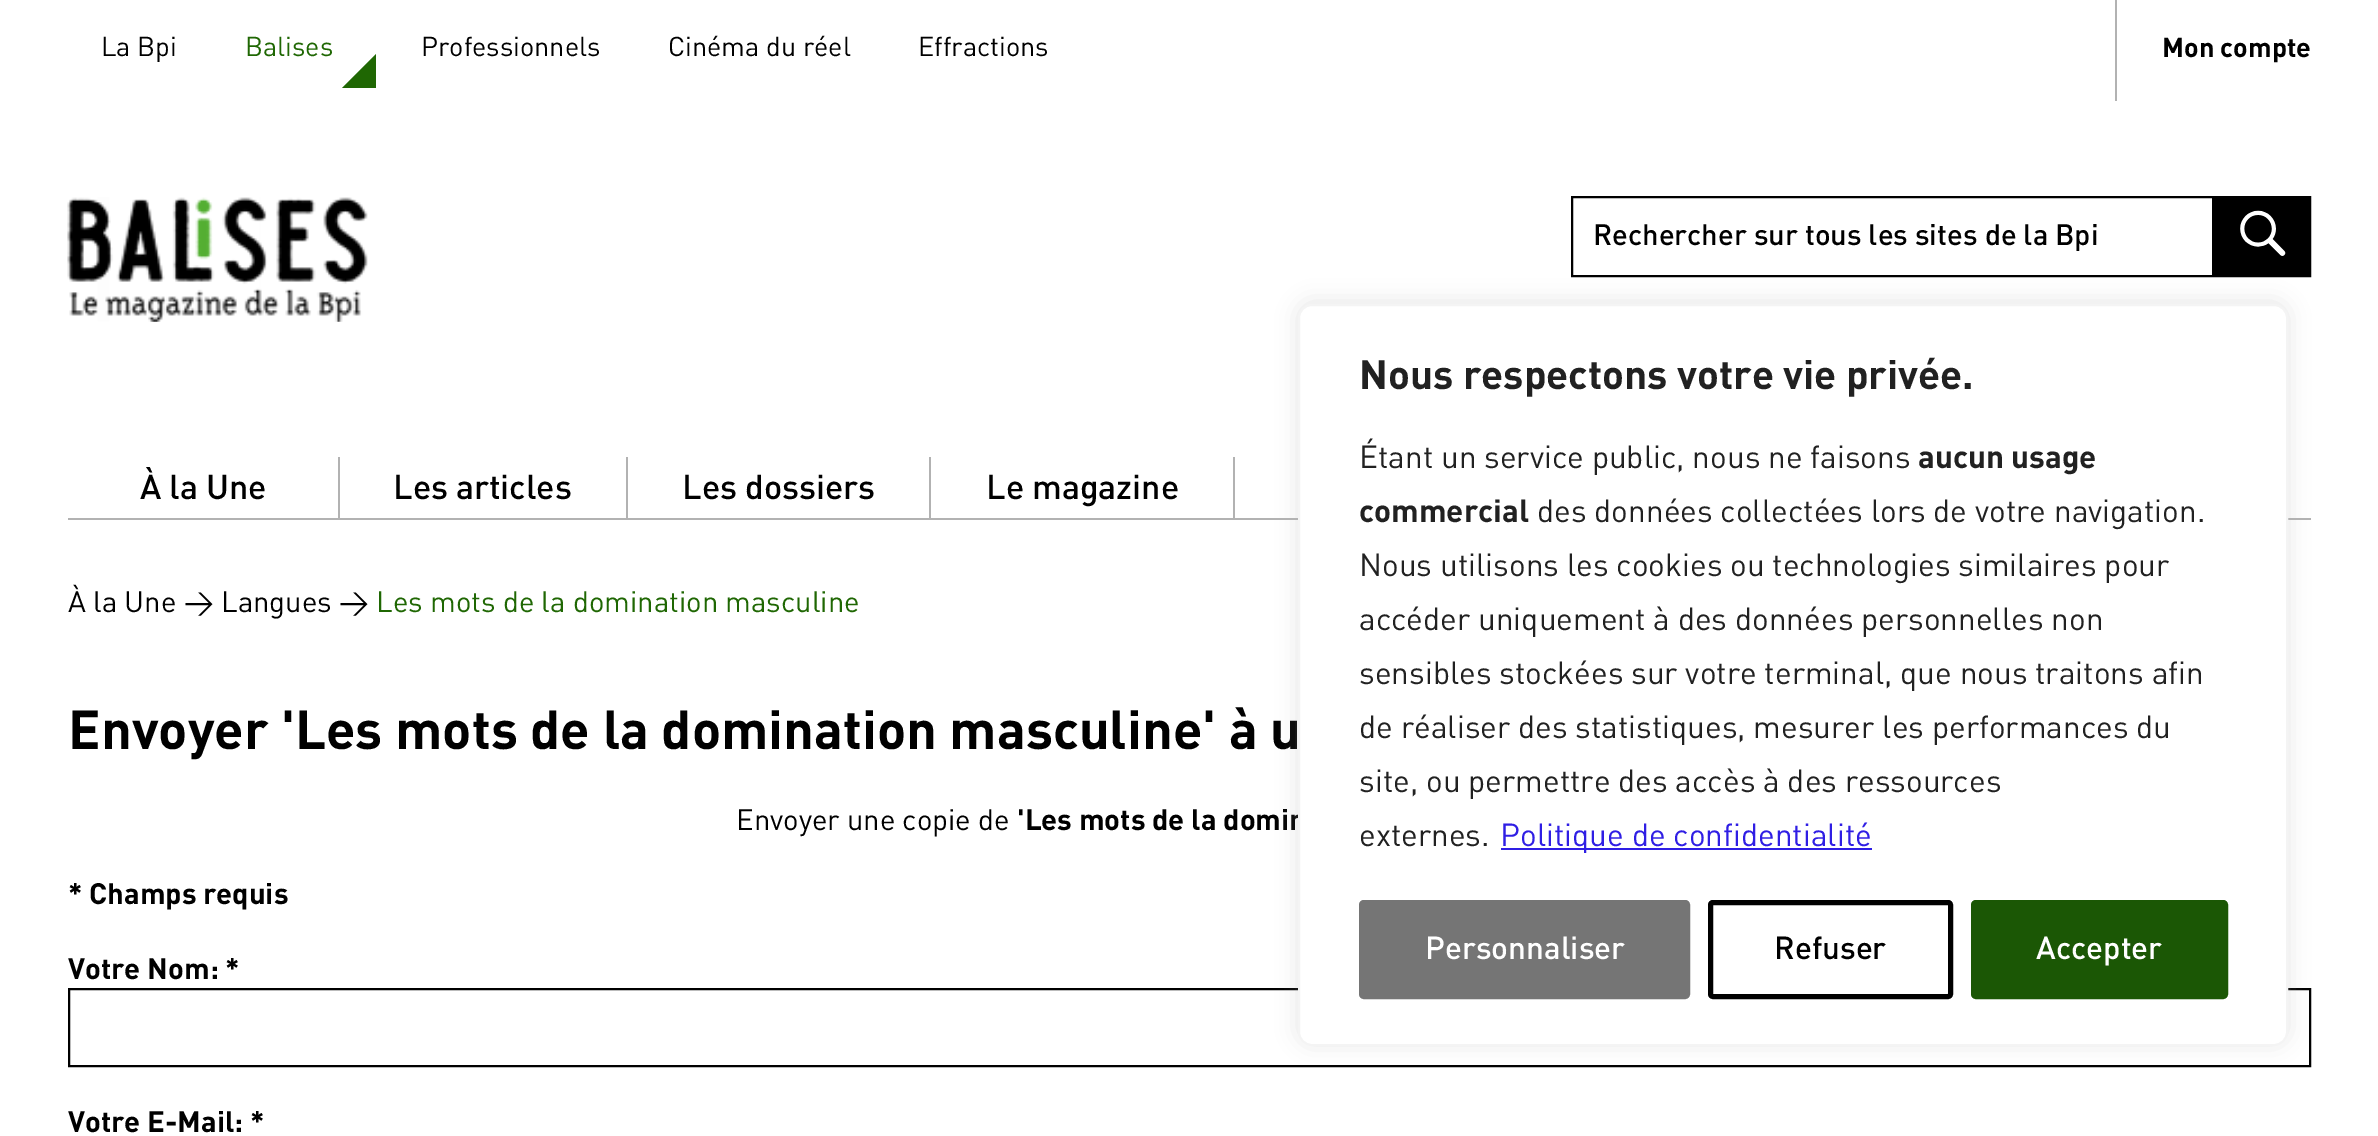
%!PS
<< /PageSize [2378 1136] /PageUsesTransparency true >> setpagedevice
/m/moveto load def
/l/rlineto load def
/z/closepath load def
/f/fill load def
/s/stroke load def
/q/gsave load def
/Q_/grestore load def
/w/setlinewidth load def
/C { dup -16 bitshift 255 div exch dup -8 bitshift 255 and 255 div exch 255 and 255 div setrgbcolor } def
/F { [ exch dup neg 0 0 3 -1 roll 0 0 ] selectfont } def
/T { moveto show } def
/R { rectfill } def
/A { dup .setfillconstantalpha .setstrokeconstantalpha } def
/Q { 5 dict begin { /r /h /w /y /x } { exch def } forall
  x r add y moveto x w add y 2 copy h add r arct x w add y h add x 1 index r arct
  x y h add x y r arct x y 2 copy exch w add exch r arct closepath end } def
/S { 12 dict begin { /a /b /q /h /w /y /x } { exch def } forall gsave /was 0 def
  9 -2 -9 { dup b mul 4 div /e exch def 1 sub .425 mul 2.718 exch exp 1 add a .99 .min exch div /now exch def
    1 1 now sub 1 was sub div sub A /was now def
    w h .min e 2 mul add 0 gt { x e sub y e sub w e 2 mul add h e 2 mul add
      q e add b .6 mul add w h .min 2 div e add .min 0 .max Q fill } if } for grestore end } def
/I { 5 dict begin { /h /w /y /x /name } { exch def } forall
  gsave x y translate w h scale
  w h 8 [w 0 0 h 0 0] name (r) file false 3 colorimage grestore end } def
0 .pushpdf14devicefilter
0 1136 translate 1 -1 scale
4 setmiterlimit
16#FFFFFF C
0 0 2378 1136 R
/DIN-Regular 27 F
16#000000 C
(La Bpi) 101 56 T
16#1F6703 C
(Balises) 245 56 T
376 88 m -34 0 l 34 -34 l z f
16#000000 C
(Professionnels) 421 56 T
(Cinéma du réel) 668 56 T
(Effractions) 918 56 T
16#B2B2B2 C
2115 0 2 101 R
/DIN-Bold 27 F
16#000000 C
(Mon compte) 2162 57 T
(1.rgb) 67 197 301 125 I
2 w
1572 197 738 79 rectstroke
/DIN-Medium 29.25 F
(Rechercher sur tous les sites de la Bpi) 1593 245 T
2212 198 97 77 R
(2.rgb) 2240 210 46 46 I
16#B2B2B2 C
68 518 2243 2 R
338 457 2 61 R
/DIN-Medium 34 F
16#000000 C
(À la Une) 140 499 T
16#B2B2B2 C
626 457 2 61 R
16#000000 C
(Les articles) 393 499 T
16#B2B2B2 C
929 457 2 61 R
16#000000 C
(Les dossiers) 682 499 T
16#B2B2B2 C
1233 457 2 61 R
16#000000 C
(Le magazine) 986 499 T
/DIN-Regular 29.25 F
(À la Une > Langues >) 68 612 T
16#1F6703 C
(Les mots de la domination masculine) 376 612 T
/DIN-Bold 54 F
16#000000 C
(Envoyer 'Les mots de la domination masculine' à u) 68 749 T
/DIN-Regular 29.25 F
(Envoyer une copie de) 736 830 T
/DIN-Bold 29.25 F
('Les mots de la domin) 1017 830 T
(* Champs requis) 68 904 T
(Votre Nom: *) 68 979 T
69 989 2241 77 rectstroke
(Votre E-Mail: *) 68 1132 T
16#ACABAB C
1298 302 990 742 14 11 .3 S
16#FFFFFF C
1299 305 988 740 13 Q q f Q_
16#F4F4F4 C
s
/DIN-Bold 40.5 F
16#212121 C
(Nous respectons votre vie privée.) 1359 389 T
/DIN-Regular 31.5 F
(Étant un service public, nous ne faisons) 1359 468 T
/DIN-Bold 31.5 F
(aucun usage) 1918 468 T
(commercial) 1359 522 T
/DIN-Regular 31.5 F
(des données collectées lors de votre navigation.) 1537 522 T
(Nous utilisons les cookies ou technologies similaires pour) 1359 576 T
(accéder uniquement à des données personnelles non) 1359 630 T
(sensibles stockées sur votre terminal, que nous traitons afin) 1359 684 T
(de réaliser des statistiques, mesurer les performances du) 1359 738 T
(site, ou permettre des accès à des ressources) 1359 792 T
(externes.) 1359 846 T
16#2F1EE4 C
1501 848 371 2 R
(Politique de confidentialité) 1500 846 T
16#757575 C
1361.5 902.5 326 94 2.5 Q q f Q_
5 w
s
/DIN-Medium 31.5 F
16#FFFFFF C
(Personnaliser) 1425 959 T
16#000000 C
1710.5 902.5 240 94 2.5 Q s
(Refuser) 1774 959 T
16#1B5705 C
1973.5 902.5 252 94 2.5 Q q f Q_
s
16#FFFFFF C
(Accepter) 2036 959 T
.poppdf14devicefilter showpage
